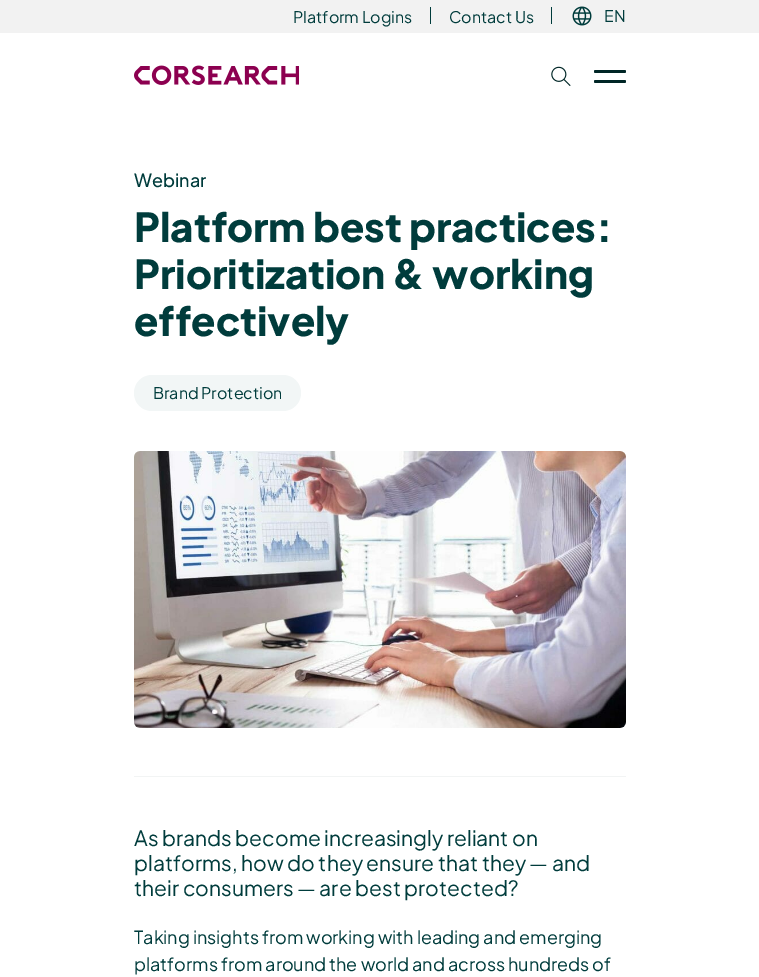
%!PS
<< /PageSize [759 977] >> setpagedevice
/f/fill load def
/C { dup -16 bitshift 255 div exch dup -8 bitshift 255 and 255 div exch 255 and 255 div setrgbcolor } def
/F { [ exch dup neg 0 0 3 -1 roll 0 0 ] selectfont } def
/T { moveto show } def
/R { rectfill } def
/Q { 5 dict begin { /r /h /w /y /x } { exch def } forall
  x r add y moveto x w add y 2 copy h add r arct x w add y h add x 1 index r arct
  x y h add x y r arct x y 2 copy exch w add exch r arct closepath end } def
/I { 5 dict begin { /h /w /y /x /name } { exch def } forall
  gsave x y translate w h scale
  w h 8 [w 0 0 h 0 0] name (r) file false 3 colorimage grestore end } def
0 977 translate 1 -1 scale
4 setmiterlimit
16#FFFFFF C
0 0 759 977 R
16#F2F2F2 C
0 0 759 33 R
/PlusJakartaSans-Regular 16 F
16#003C3C C
(Platform Logins) 293 23 T
430 7 1 17 R
(Contact Us) 449 23 T
551 7 1 17 R
(1.rgb) 572 6 20 20 I
(EN) 604 22 T
(2.rgb) 134 65 165 20 I
(3.rgb) 551 66 20 20 I
16#002626 C
594 70 32 3 1.5 Q f
594 80 32 3 1.5 Q f
/PlusJakartaSans-Medium 18 F
16#003C3C C
(Webinar) 134 187 T
/PlusJakartaSans-ExtraBold 40 F
(Platform best practices:) 134 242 T
(Prioritization & working) 134 289 T
(effectively) 134 336 T
16#F2F6F6 C
134 375 167 36 18 Q f
/PlusJakartaSans-Regular 16 F
16#003C3C C
(Brand Protection) 153 399 T
(4.rgb) 134 451 492 277 I
16#F2F4F4 C
134 776 492 1 R
/PlusJakartaSans-Regular 21 F
16#003C3C C
(As brands become increasingly reliant on) 134 846 T
(platforms, how do they ensure that they — and) 134 871 T
(their consumers — are best protected?) 134 896 T
/PlusJakartaSans-Regular 18 F
(Taking insights from working with leading and emerging) 134 944 T
(platforms from around the world and across hundreds of) 134 971 T
showpage
